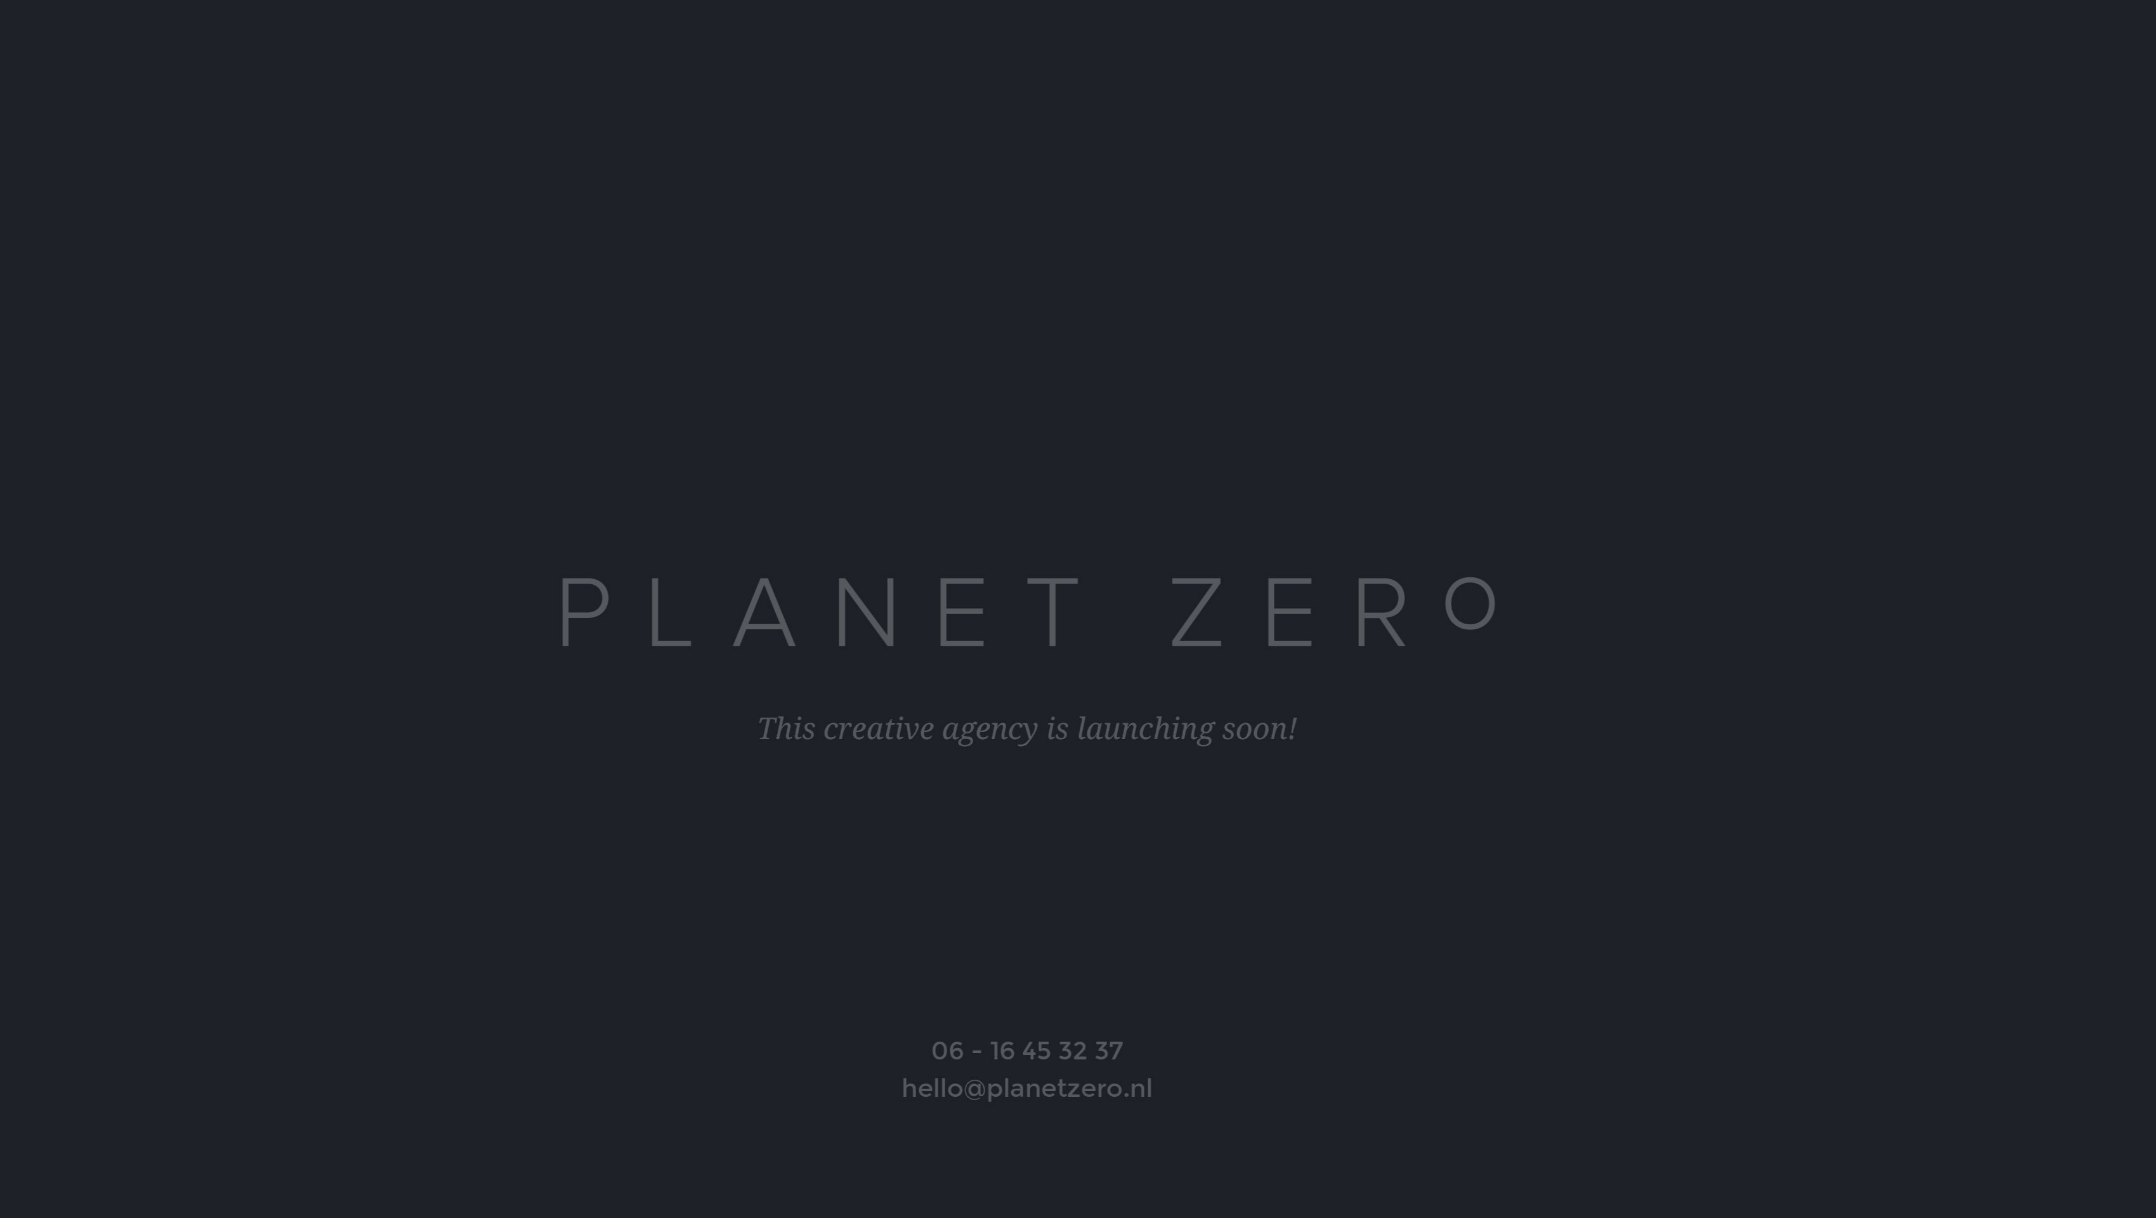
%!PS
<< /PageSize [2156 1218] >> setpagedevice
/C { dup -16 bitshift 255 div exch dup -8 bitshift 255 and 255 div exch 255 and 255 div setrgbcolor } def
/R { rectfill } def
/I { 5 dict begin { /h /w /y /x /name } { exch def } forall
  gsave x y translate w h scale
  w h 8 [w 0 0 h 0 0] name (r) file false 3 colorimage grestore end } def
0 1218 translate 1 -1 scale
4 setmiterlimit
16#FFFFFF C
0 0 2156 1218 R
(1.rgb) 0 0 2156 1218 I
showpage
